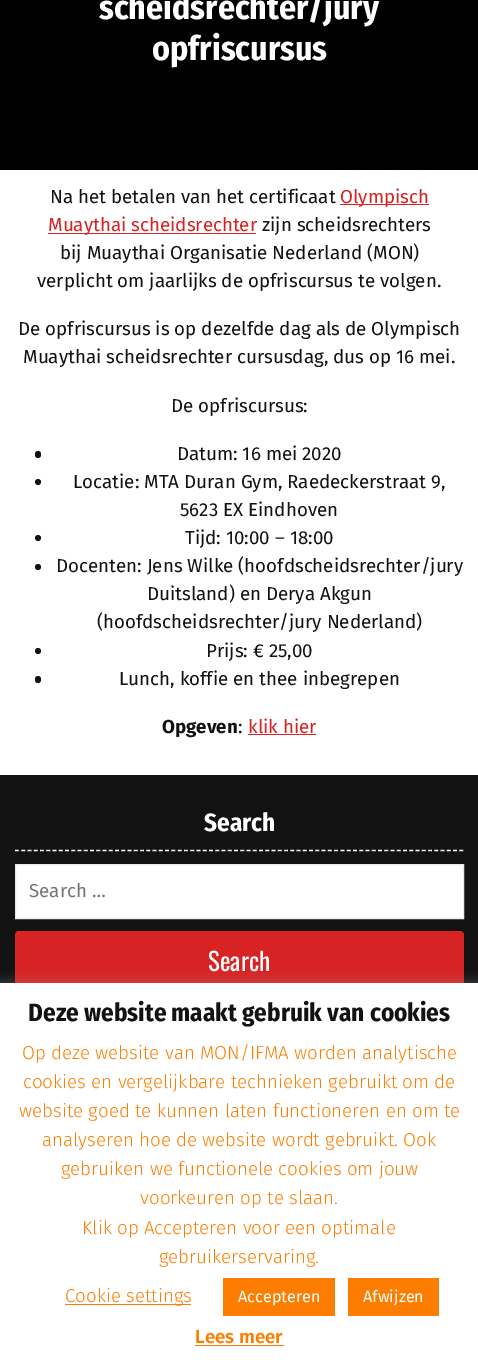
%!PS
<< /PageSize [478 1366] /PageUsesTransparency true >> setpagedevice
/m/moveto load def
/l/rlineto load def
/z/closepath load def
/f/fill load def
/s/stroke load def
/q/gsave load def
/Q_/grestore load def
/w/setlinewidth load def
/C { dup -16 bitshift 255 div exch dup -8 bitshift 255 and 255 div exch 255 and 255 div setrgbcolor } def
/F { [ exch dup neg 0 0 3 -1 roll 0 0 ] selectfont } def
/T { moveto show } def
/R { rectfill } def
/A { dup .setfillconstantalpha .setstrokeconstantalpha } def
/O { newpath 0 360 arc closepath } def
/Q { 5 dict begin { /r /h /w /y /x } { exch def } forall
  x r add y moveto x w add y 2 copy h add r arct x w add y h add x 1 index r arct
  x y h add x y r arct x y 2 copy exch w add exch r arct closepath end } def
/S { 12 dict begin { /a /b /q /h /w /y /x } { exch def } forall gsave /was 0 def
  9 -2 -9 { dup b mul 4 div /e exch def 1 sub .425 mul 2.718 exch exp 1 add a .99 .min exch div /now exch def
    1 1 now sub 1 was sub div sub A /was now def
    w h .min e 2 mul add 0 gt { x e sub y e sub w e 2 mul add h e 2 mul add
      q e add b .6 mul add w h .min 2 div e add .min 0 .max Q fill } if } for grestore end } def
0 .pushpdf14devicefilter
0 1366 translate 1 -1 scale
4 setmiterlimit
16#FFFFFF C
0 0 478 1366 R
16#000000 C
0 0 478 170 R
/FiraSansCondensed-Bold 33.75 F
16#FFFFFF C
(scheidsrechter/jury) 99 19 T
(opfriscursus) 152 60 T
/FiraSans-Regular 18.75 F
16#121212 C
(Na het betalen van het certificaat) 50 203 T
16#D72323 C
340 204 89 1 R
(Olympisch) 340 203 T
48 233 208 1 R
(Muaythai scheidsrechter) 48 231 T
16#121212 C
(zijn scheidsrechters) 262 231 T
(bij Muaythai Organisatie Nederland \(MON\)) 60 259 T
(verplicht om jaarlijks de opfriscursus te volgen.) 37 287 T
(De opfriscursus is op dezelfde dag als de Olympisch) 18 335 T
(Muaythai scheidsrechter cursusdag, dus op 16 mei.) 23 363 T
(De opfriscursus:) 171 412 T
35 451 6 7 3 Q f
(Datum: 16 mei 2020) 177 460 T
38 482 3 O f
(Locatie: MTA Duran Gym, Raedeckerstraat 9,) 73 488 T
(5623 EX Eindhoven) 180 516 T
38 538 3 O f
(Tijd: 10:00 – 18:00) 185 544 T
38 567 3 O f
(Docenten: Jens Wilke \(hoofdscheidsrechter/jury) 56 572 T
(Duitsland\) en Derya Akgun) 147 600 T
(\(hoofdscheidsrechter/jury Nederland\)) 97 628 T
38 651 3 O f
(Prijs: € 25,00) 206 657 T
35 676 6 7 3 Q f
(Lunch, koffie en thee inbegrepen) 119 685 T
/FiraSans-Bold 18.75 F
(Opgeven) 162 733 T
/FiraSans-Regular 18.75 F
(:) 238 733 T
16#D72323 C
(klik hier) 248 733 T
248 734 68 1 R
16#121212 C
0 775 478 208 R
16#FFFFFF C
1.2 w
[3.75 2.51] 0 setdash
15 850.5 m 449 0 l s
/FiraSansCondensed-Bold 25 F
(Search) 204 831 T
15.5 864.5 m 448 0 l 0 54 l -448 0 l z q f Q_
16#EBEBEB C
1 w
[] 0 setdash
s
/FiraSans-Regular 18.75 F
16#757575 C
(Search …) 29 897 T
16#D72323 C
15 931 449 58 4 Q f
/Oswald-Regular 25 F
16#FFFFFF C
(Search) 208 971 T
16#ACABAB C
0 981 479 384 0 6 .3 S
16#FFFFFF C
0 983 478 383 R
/FiraSansCondensed-Bold 25 F
16#121212 C
(Deze website maakt gebruik van cookies) 28 1021 T
/FiraSans-Light 18.75 F
16#FD7D00 C
(Op deze website van MON/IFMA worden analytische) 22 1059 T
(cookies en vergelijkbare technieken gebruikt om de) 23 1088 T
(website goed te kunnen laten functioneren en om te) 19 1117 T
(analyseren hoe de website wordt gebruikt. Ook) 42 1146 T
(gebruiken we functionele cookies om jouw) 61 1175 T
(voorkeuren op te slaan.) 140 1204 T
(Klik op Accepteren voor een optimale) 82 1234 T
(gebruikerservaring.) 159 1263 T
65 1304 126 1 R
(Cookie settings) 65 1302 T
223 1278 112 38 R
/FiraSans-Regular 16.25 F
16#FFFFFF C
(Accepteren) 238 1302 T
16#FD7D00 C
348 1278 91 38 R
16#FFFFFF C
(Afwijzen) 363 1302 T
/FiraSans-SemiBold 18.75 F
16#FD7D00 C
(Lees meer) 195 1343 T
195 1345 89 1 R
.poppdf14devicefilter showpage
